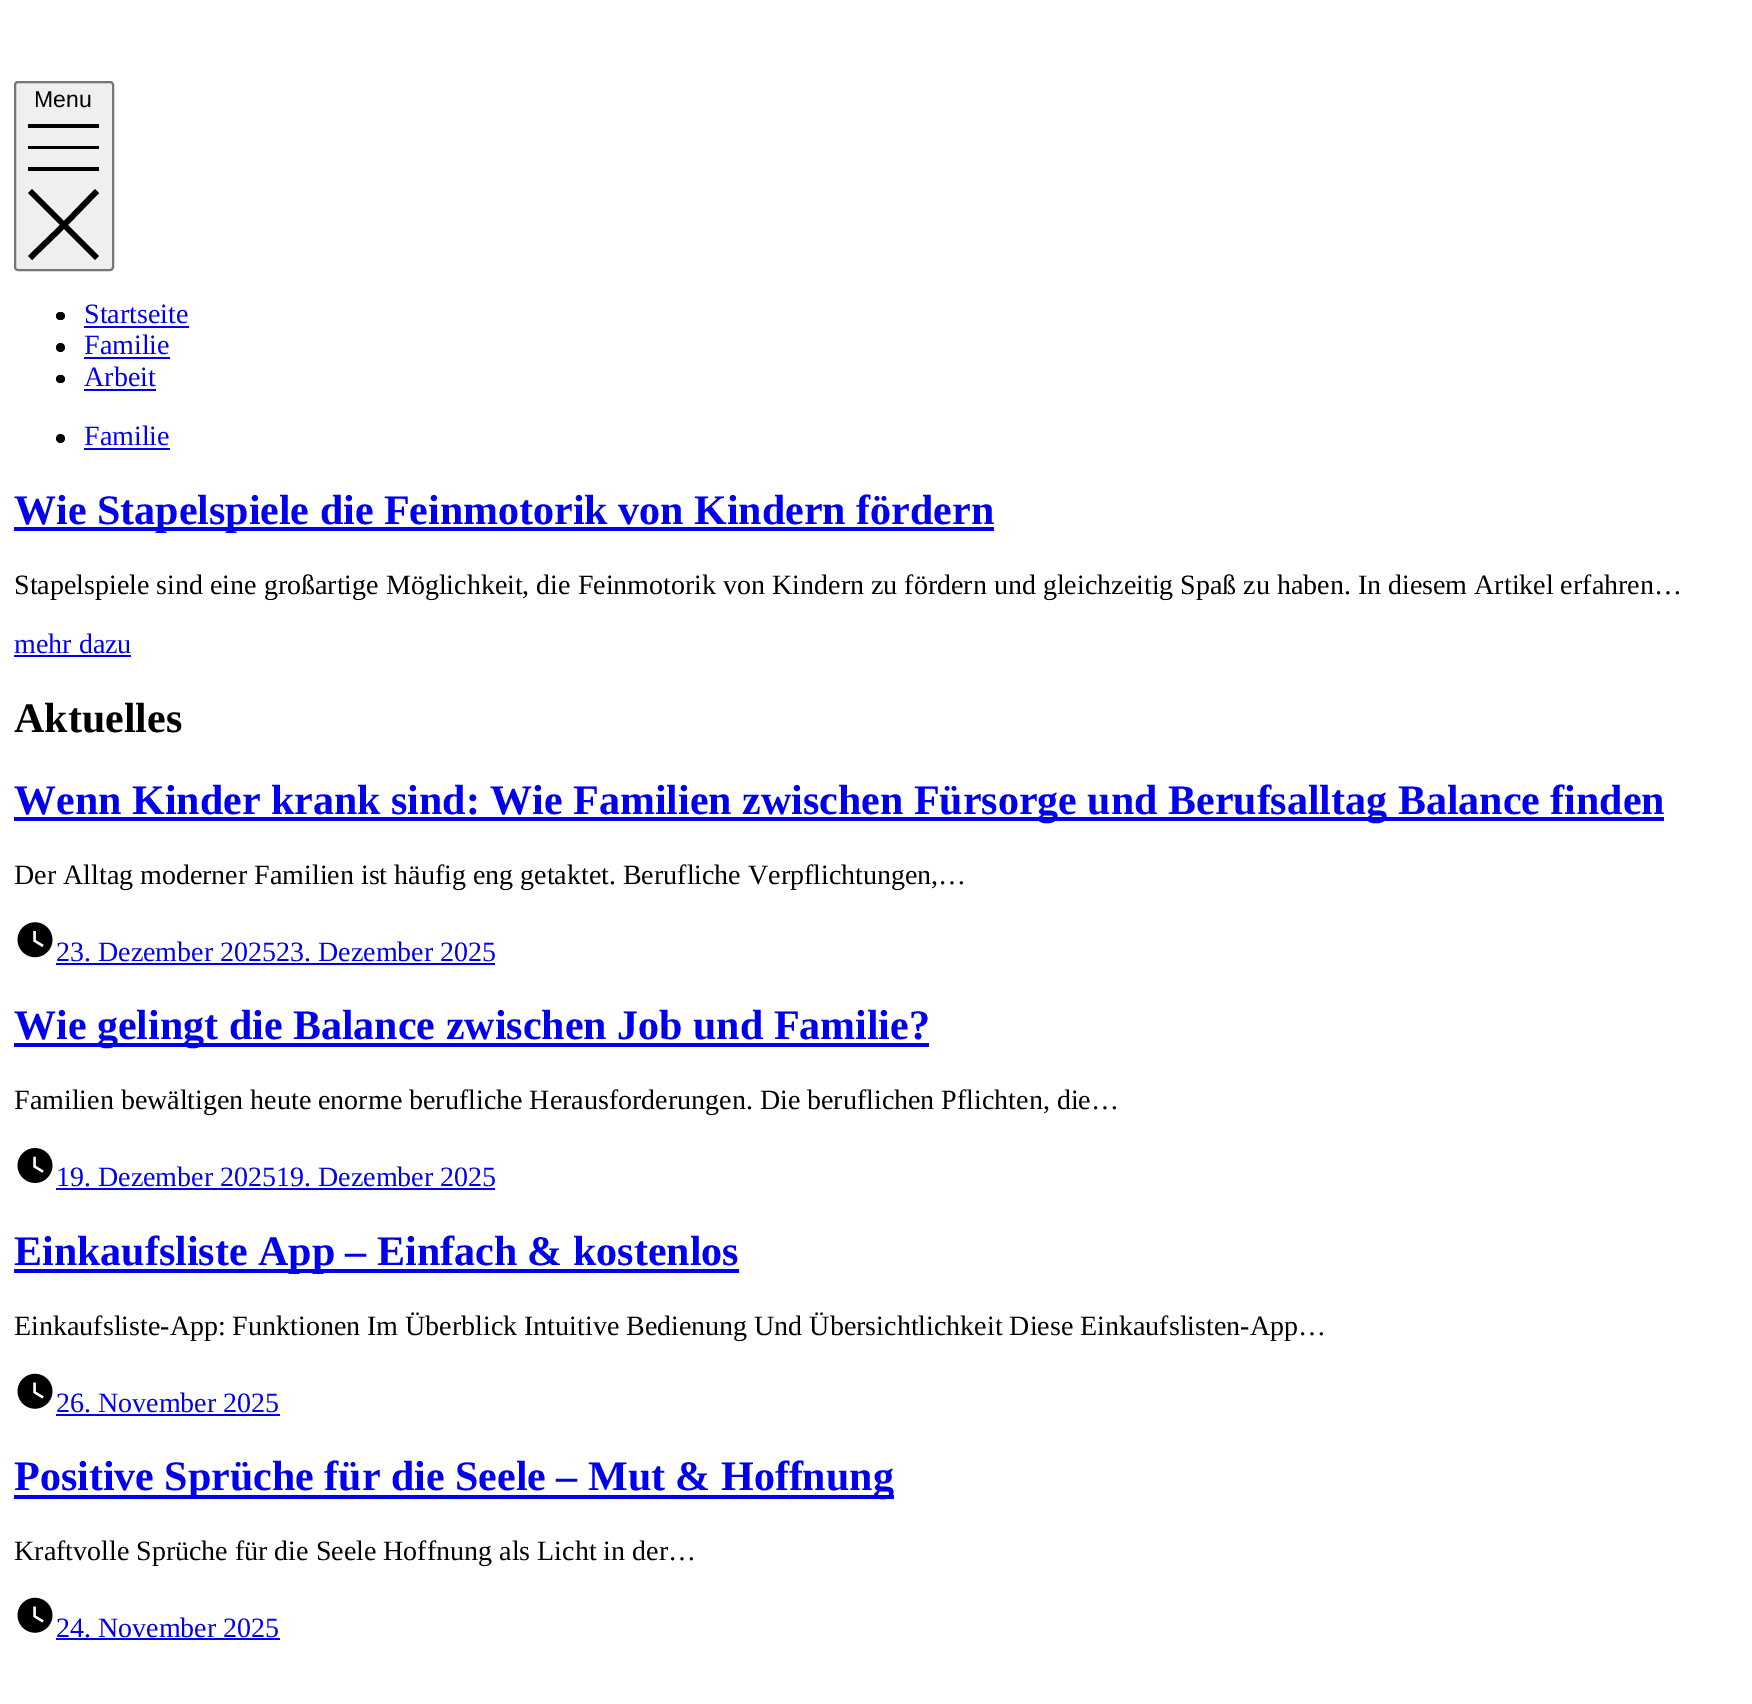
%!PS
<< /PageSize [1752 1704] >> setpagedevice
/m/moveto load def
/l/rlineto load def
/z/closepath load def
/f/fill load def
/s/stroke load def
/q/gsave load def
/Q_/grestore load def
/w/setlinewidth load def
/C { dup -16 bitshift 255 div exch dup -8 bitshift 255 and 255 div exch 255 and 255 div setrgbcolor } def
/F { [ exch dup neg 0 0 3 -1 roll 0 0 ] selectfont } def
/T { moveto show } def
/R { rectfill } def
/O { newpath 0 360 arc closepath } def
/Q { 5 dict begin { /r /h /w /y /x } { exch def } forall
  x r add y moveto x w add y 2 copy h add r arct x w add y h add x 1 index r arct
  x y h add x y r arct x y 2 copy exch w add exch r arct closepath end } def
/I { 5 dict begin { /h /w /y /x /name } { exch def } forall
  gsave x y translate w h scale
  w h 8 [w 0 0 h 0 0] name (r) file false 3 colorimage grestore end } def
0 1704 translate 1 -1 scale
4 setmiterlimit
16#FFFFFF C
0 0 1752 1704 R
16#EFEFEF C
15 82 98 188 3 Q q f Q_
16#767676 C
2 w
s
/LiberationSans-Regular 23 F
16#000000 C
(Menu) 34 107 T
28 124 71 4 R
28 146 71 3 R
28 167 71 4 R
99 193 m -4 -4 l -31 32 l -32 -32 l -4 4 l 32 32 l -32 31 l 4 4 l 32 -31 l 31 31 l 4 -4 l -31 -31 l z f
56 312 9 8 4 Q f
/LiberationSerif-Regular 28 F
16#0000EE C
(Startseite) 84 323 T
84 326 105 2 R
16#000000 C
60.5 347.5 4.5 O f
16#0000EE C
(Familie) 84 354 T
84 357 86 2 R
16#000000 C
56 375 9 8 4 Q f
16#0000EE C
(Arbeit) 84 386 T
84 389 72 2 R
16#000000 C
60.5 438.5 4.5 O f
16#0000EE C
(Familie) 84 445 T
84 448 86 2 R
14 527 980 4 R
/LiberationSerif-Bold 42 F
(Wie Stapelspiele die Feinmotorik von Kindern fördern) 14 524 T
/LiberationSerif-Regular 28 F
16#000000 C
(Stapelspiele sind eine großartige Möglichkeit, die Feinmotorik von Kindern zu fördern und gleichzeitig Spaß zu haben. In diesem Artikel erfahren…) 14 594 T
16#0000EE C
(mehr dazu) 14 653 T
14 655 117 2 R
/LiberationSerif-Bold 42 F
16#000000 C
(Aktuelles) 14 732 T
16#0000EE C
14 817 1650 4 R
(Wenn Kinder krank sind: Wie Familien zwischen Fürsorge und Berufsalltag Balance finden) 14 814 T
/LiberationSerif-Regular 28 F
16#000000 C
(Der Alltag moderner Familien ist häufig eng getaktet. Berufliche Verpflichtungen,…) 14 884 T
(1.rgb) 17 922 36 36 I
16#0000EE C
(23. Dezember 202523. Dezember 2025) 56 961 T
56 963 439 2 R
14 1043 915 4 R
/LiberationSerif-Bold 42 F
(Wie gelingt die Balance zwischen Job und Familie?) 14 1039 T
/LiberationSerif-Regular 28 F
16#000000 C
(Familien bewältigen heute enorme berufliche Herausforderungen. Die beruflichen Pflichten, die…) 14 1109 T
(2.rgb) 17 1148 36 35 I
16#0000EE C
(19. Dezember 202519. Dezember 2025) 56 1186 T
56 1188 439 2 R
14 1269 725 4 R
/LiberationSerif-Bold 42 F
(Einkaufsliste App – Einfach & kostenlos) 14 1265 T
/LiberationSerif-Regular 28 F
16#000000 C
(Einkaufsliste-App: Funktionen Im Überblick Intuitive Bedienung Und Übersichtlichkeit Diese Einkaufslisten-App…) 14 1335 T
(3.rgb) 17 1373 36 36 I
16#0000EE C
(26. November 2025) 56 1412 T
56 1414 224 2 R
14 1495 880 4 R
/LiberationSerif-Bold 42 F
(Positive Sprüche für die Seele – Mut & Hoffnung) 14 1490 T
/LiberationSerif-Regular 28 F
16#000000 C
(Kraftvolle Sprüche für die Seele Hoffnung als Licht in der…) 14 1560 T
(3.rgb) 17 1597 36 36 I
16#0000EE C
(24. November 2025) 56 1637 T
56 1638 224 2 R
showpage
